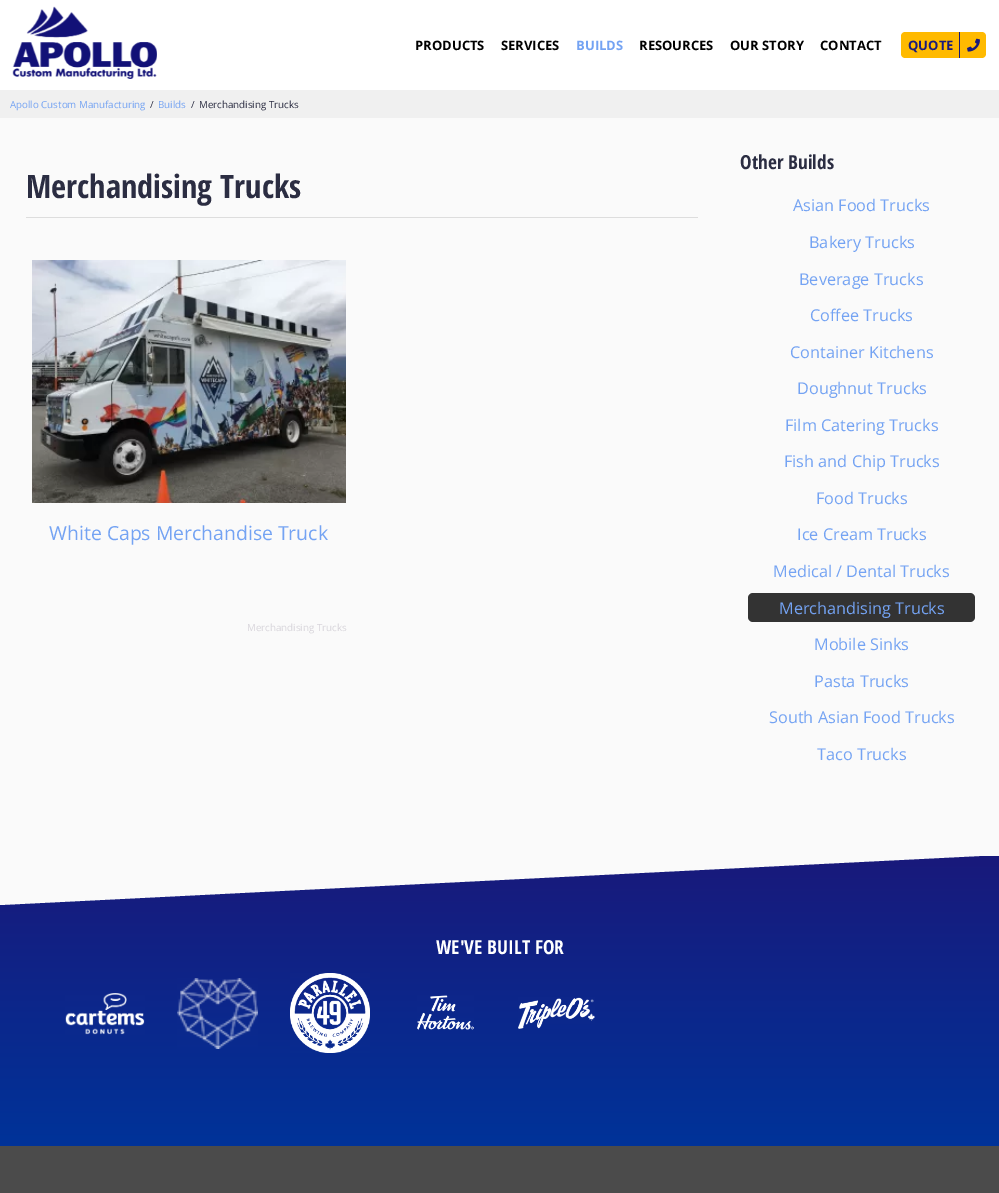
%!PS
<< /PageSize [999 1193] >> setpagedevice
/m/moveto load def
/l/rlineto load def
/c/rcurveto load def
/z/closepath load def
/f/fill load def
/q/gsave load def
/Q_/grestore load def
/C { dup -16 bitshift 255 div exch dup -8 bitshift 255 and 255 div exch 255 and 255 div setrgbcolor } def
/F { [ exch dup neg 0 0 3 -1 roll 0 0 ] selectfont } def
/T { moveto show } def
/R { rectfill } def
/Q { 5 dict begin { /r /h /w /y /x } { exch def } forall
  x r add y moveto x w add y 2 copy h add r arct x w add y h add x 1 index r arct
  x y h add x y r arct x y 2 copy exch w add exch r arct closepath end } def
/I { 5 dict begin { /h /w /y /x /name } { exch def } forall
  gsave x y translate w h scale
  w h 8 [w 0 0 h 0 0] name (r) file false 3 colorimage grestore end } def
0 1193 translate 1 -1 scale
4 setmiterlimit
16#FAFAFA C
0 0 999 1193 R
16#FFFFFF C
0 0 999 90 R
(1.rgb) 12 6 145 73 I
/OpenSans-Bold 13 F
16#000000 C
(PRODUCTS) 415 50 T
(SERVICES) 501 50 T
16#74A3F3 C
(BUILDS) 576 50 T
16#000000 C
(RESOURCES) 639 50 T
(OUR STORY) 730 50 T
(CONTACT) 820 50 T
16#FFBA00 C
905 32 m 54 0 l 0 26 l -54 0 l -2 0 -4 -2 -4 -4 c 0 -18 l 0 -2 2 -4 4 -4 c z f
16#19197B C
(QUOTE) 908 50 T
16#FFBA00 C
959 32 m 23 0 l 2 0 4 2 4 4 c 0 18 l 0 2 -2 4 -4 4 c -23 0 l z f
16#19197B C
959 32 1 26 R
(2.rgb) 967 38 13 14 I
16#F0F0F0 C
0 90 999 28 R
/OpenSans-Regular 9.75 F
16#74A3F3 C
(Apollo Custom Manufacturing) 10 108 T
16#2B2D42 C
(/) 150 108 T
16#74A3F3 C
(Builds) 158 108 T
16#2B2D42 C
(/) 191 108 T
(Merchandising Trucks) 199 108 T
16#DDDDDD C
26 217 672 1 R
/OpenSansCondensed-Bold 32.4 F
16#2B2D42 C
(Merchandising Trucks) 26 198 T
(3.rgb) 32 260 314 243 I
/OpenSans-Regular 19.4 F
16#74A3F3 C
(White Caps Merchandise Truck) 49 540 T
/OpenSans-Regular 9.75 F
16#D8D5DB C
(Merchandising Trucks) 247 631 T
/OpenSansCondensed-Bold 19.4 F
16#2B2D42 C
(Other Builds) 740 169 T
/OpenSans-Regular 16.25 F
16#74A3F3 C
(Asian Food Trucks) 793 211 T
(Bakery Trucks) 809 248 T
(Beverage Trucks) 799 285 T
(Coffee Trucks) 810 321 T
(Container Kitchens) 790 358 T
(Doughnut Trucks) 797 394 T
(Film Catering Trucks) 785 431 T
(Fish and Chip Trucks) 784 467 T
(Food Trucks) 816 504 T
(Ice Cream Trucks) 797 540 T
(Medical / Dental Trucks) 773 577 T
16#333333 C
748 593 227 29 5 Q f
16#74A3F3 C
(Merchandising Trucks) 779 614 T
(Mobile Sinks) 814 650 T
(Pasta Trucks) 814 687 T
(South Asian Food Trucks) 769 723 T
(Taco Trucks) 817 760 T
q 0 856 m 999 0 l 0 290 l -999 0 l z clip newpath
<< /ShadingType 2 /ColorSpace /DeviceRGB /Coords [500 856 500 1146] /Extend [true true] /Function << /FunctionType 2 /Domain [0 1] /C0 [.098 .098 .482] /C1 [0 .2 .6] /N 1 >> >> shfill Q_
16#FAFAFA C
0 855 m 0 50 l 999 -50 l z f
/OpenSansCondensed-Bold 19.4 F
16#FFFFFF C
(WE'VE BUILT FOR) 436 954 T
(4.rgb) 65 993 80 42 I
(5.rgb) 177 978 81 71 I
(6.rgb) 290 973 80 80 I
(7.rgb) 417 995 57 35 I
(8.rgb) 518 997 77 32 I
16#4B4B4B C
0 1146 999 47 R
showpage
